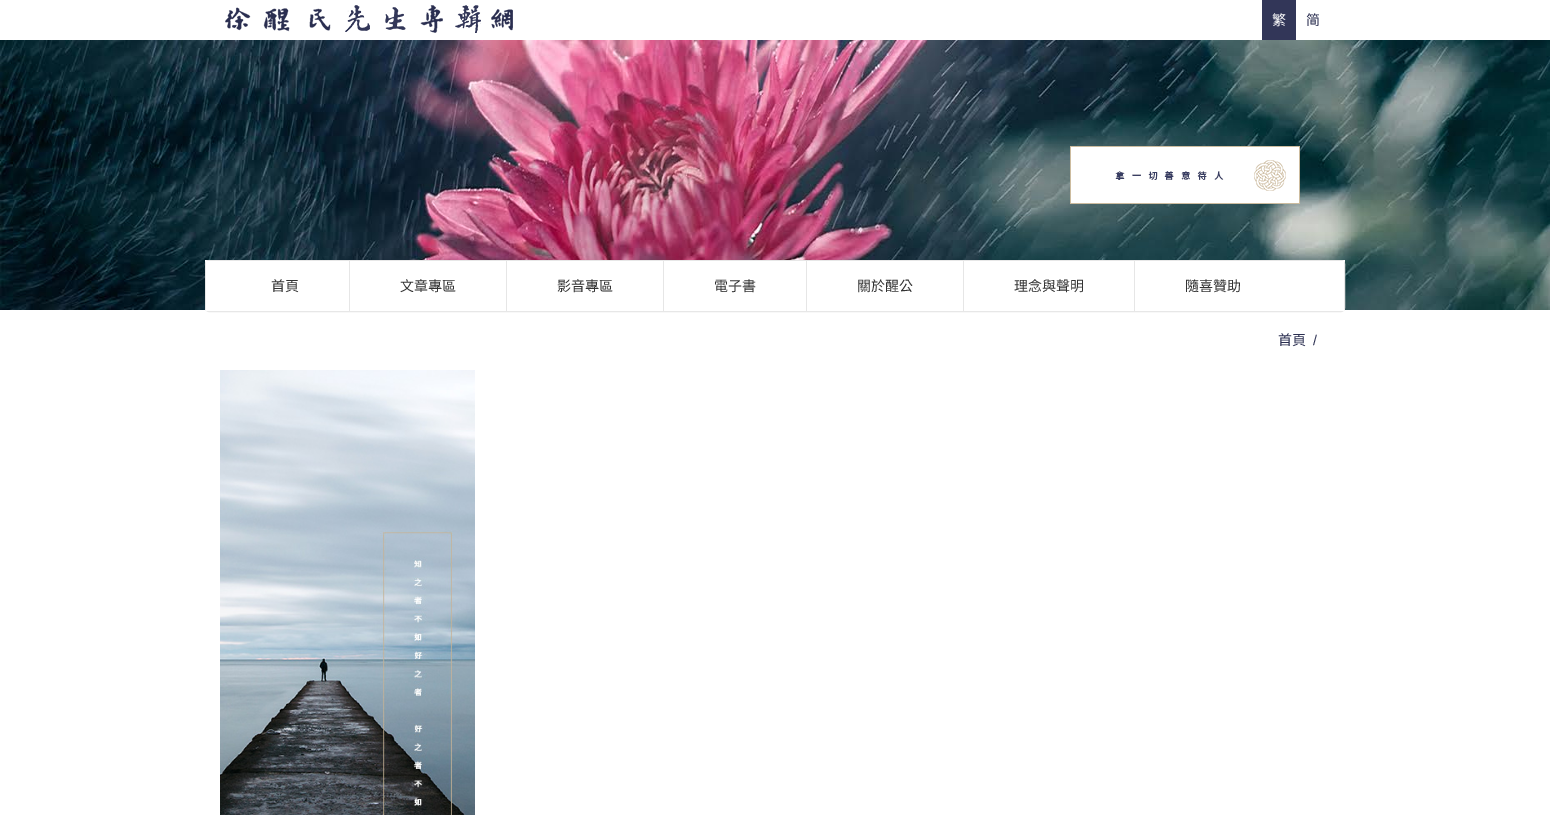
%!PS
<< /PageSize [1550 815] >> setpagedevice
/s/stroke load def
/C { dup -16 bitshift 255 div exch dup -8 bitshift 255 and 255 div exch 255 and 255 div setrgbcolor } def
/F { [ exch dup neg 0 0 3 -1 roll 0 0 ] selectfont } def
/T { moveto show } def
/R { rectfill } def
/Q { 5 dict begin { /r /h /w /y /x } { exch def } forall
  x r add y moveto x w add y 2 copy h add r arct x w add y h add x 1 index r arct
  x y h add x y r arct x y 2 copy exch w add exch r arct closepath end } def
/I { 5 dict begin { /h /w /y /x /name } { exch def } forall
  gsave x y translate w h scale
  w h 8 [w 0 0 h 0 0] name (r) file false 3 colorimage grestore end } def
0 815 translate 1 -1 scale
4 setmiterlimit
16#FFFFFF C
0 0 1550 815 R
(1.rgb) 225 5 288 28 I
16#323658 C
1262 0 34 40 R
/NotoSansCJKTC-Regular 14 F
16#FFFFFF C
(繁) 1272 25 T
16#2A2E50 C
(简) 1306 25 T
(2.rgb) 0 40 1550 270 I
(3.rgb) 1070 146 230 58 I
16#FFFFFF C
205 260 1140 50 R
16#E7E7E7 C
205.5 260.5 1139 51 3.5 Q s
16#FFFFFF C
206 261 1138 50 R
16#E6E6E6 C
349 261 1 50 R
16#333333 C
(首頁) 271 291 T
16#E6E6E6 C
506 261 1 50 R
16#333333 C
(文章專區) 400 291 T
16#E6E6E6 C
663 261 1 50 R
16#333333 C
(影音專區) 557 291 T
16#E6E6E6 C
806 261 1 50 R
16#333333 C
(電子書) 714 291 T
16#E6E6E6 C
963 261 1 50 R
16#333333 C
(關於醒公) 857 291 T
16#E6E6E6 C
1134 261 1 50 R
16#333333 C
(理念與聲明) 1014 291 T
(隨喜贊助) 1185 291 T
16#2A2E50 C
(首頁) 1278 345 T
/LiberationSans-Regular 14 F
(/) 1313 345 T
(4.rgb) 220 370 255 445 I
showpage
